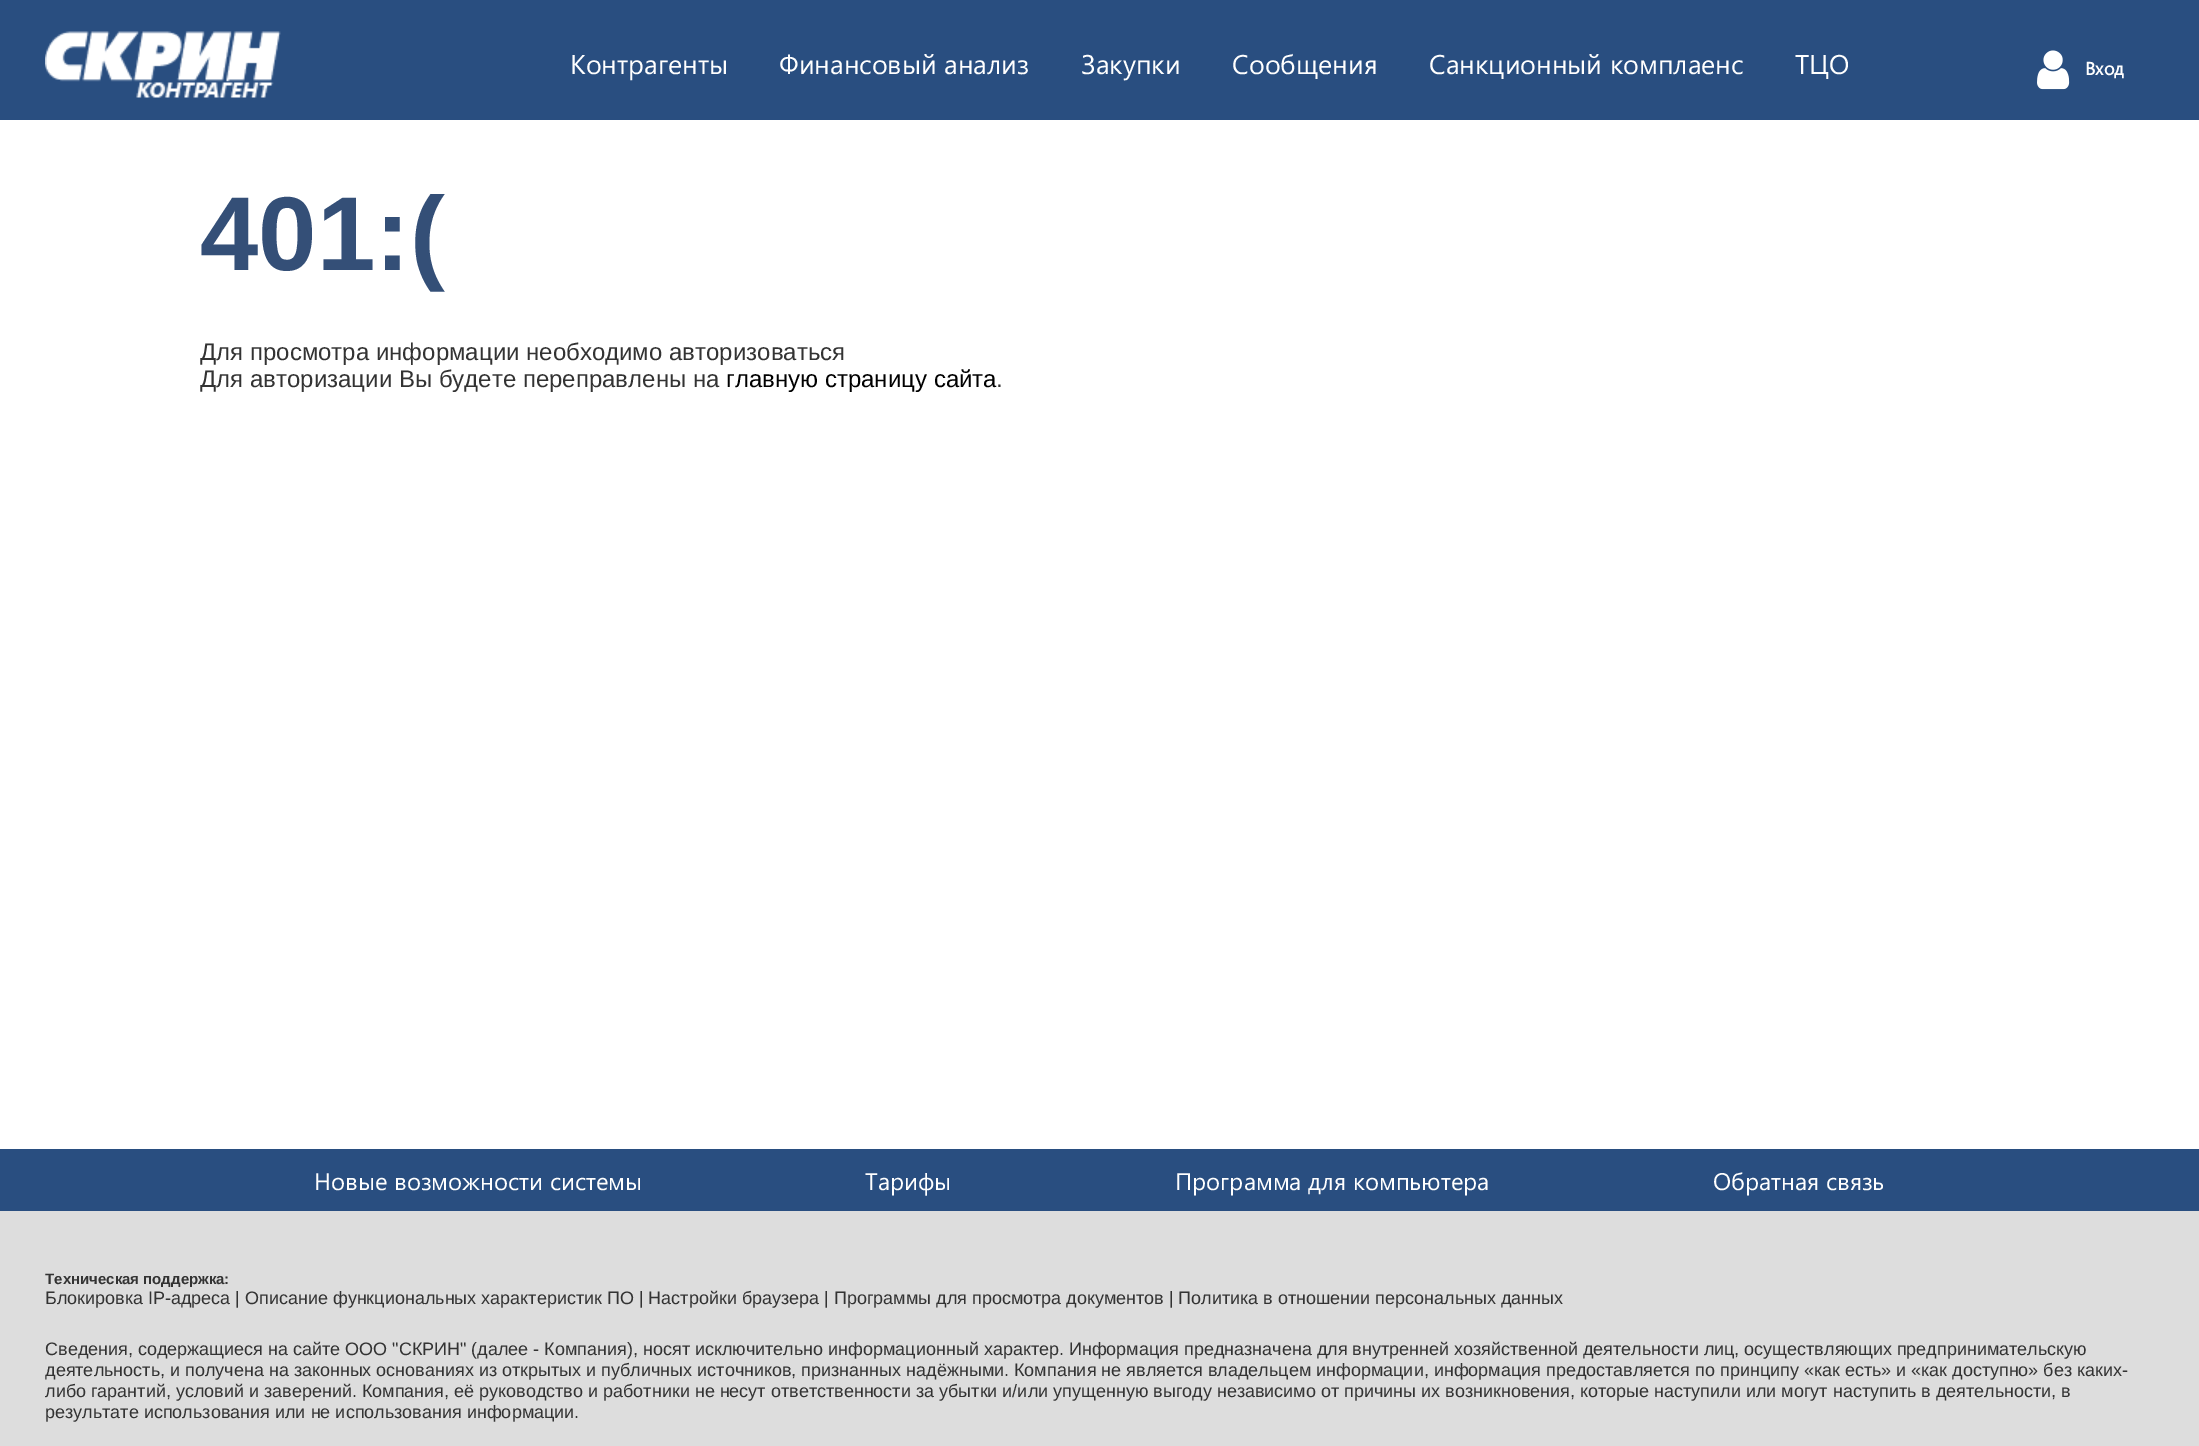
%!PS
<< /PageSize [2199 1446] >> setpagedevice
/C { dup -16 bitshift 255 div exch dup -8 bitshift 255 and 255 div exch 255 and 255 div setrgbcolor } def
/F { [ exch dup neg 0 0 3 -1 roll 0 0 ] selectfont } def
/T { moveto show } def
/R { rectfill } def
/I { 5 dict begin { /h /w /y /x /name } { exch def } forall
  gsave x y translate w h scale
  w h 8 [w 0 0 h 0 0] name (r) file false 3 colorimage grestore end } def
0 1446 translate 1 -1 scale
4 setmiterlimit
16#FFFFFF C
0 0 2199 1446 R
16#294E80 C
0 0 2199 120 R
(1.rgb) 45 31 236 67 I
/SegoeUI-Regular 27 F
16#FFFFFF C
(Контрагенты) 570 74 T
(Финансовый анализ) 779 74 T
(Закупки) 1081 74 T
(Сообщения) 1232 74 T
(Санкционный комплаенс) 1429 74 T
(ТЦО) 1795 74 T
(2.rgb) 2037 50 33 40 I
/SegoeUI-Bold 18 F
(Вход) 2085 75 T
/LiberationSans-Bold 105 F
16#344F77 C
(401:\() 200 270 T
/LiberationSans-Regular 24 F
16#333333 C
(Для просмотра информации необходимо авторизоваться) 200 360 T
(Для авторизации Вы будете переправлены на) 200 387 T
16#000000 C
(главную страницу сайта) 726 387 T
16#333333 C
(.) 996 387 T
16#294E80 C
0 1149 2199 62 R
/SegoeUI-Regular 24 F
16#FFFFFF C
(Новые возможности системы) 314 1190 T
(Тарифы) 865 1190 T
(Программа для компьютера) 1175 1190 T
(Обратная связь) 1713 1190 T
16#DDDDDD C
0 1211 2199 235 R
/LiberationSans-Bold 15 F
16#333333 C
(Техническая поддержка:) 45 1284 T
/LiberationSans-Regular 18 F
(Блокировка IP-адреса | Описание функциональных характеристик ПО | Настройки браузера | Программы для просмотра документов | Политика в отношении персональных данных) 45 1304 T
(Сведения, содержащиеся на сайте ООО "СКРИН" \(далее - Компания\), носят исключительно информационный характер. Информация предназначена для внутренней хозяйственной деятельности лиц, осуществляющих предпринимательскую) 45 1355 T
(деятельность, и получена на законных основаниях из открытых и публичных источников, признанных надёжными. Компания не является владельцем информации, информация предоставляется по принципу «как есть» и «как доступно» без каких-) 45 1376 T
(либо гарантий, условий и заверений. Компания, её руководство и работники не несут ответственности за убытки и/или упущенную выгоду независимо от причины их возникновения, которые наступили или могут наступить в деятельности, в) 45 1397 T
(результате использования или не использования информации.) 45 1418 T
showpage
